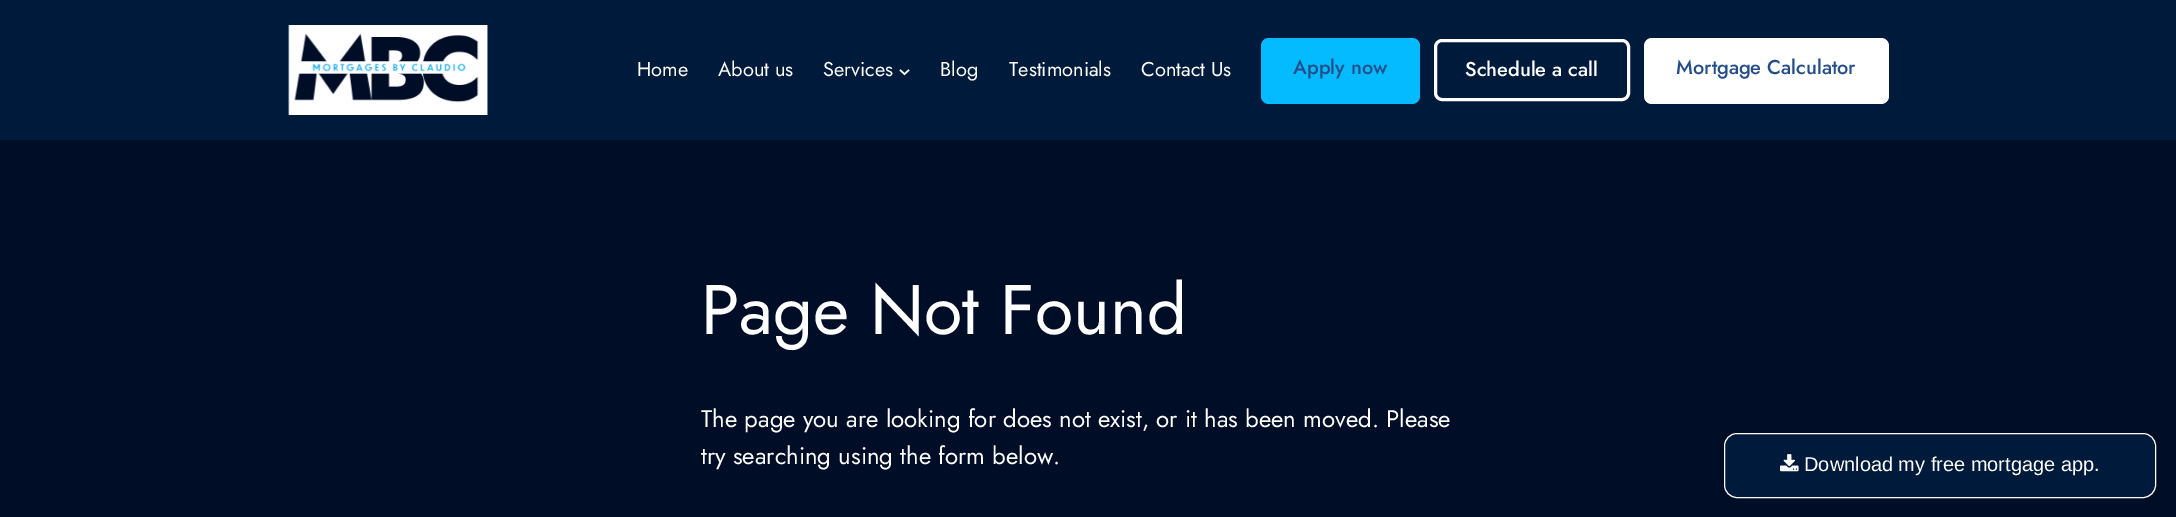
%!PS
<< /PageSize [2176 517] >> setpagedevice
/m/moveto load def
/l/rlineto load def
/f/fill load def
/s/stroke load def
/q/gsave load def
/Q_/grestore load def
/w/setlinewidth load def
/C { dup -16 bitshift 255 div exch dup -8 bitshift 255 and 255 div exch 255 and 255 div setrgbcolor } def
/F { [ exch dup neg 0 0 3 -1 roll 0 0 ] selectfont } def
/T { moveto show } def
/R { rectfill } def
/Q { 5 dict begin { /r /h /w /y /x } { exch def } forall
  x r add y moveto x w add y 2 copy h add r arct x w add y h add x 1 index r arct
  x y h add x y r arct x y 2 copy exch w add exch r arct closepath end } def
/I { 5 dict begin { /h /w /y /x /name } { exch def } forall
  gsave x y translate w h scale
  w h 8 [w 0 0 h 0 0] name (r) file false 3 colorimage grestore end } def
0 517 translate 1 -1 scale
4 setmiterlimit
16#000D26 C
0 0 2176 517 R
16#001A3C C
0 0 2176 140 R
(1.rgb) 288 25 200 90 I
/Jost-Regular 20 F
16#FFFFFF C
(Home) 637 76 T
(About us) 718 76 T
(Services) 823 76 T
1.5 w
900 70 m 4.5 4 l 4.5 -4 l s
(Blog) 940 76 T
(Testimonials) 1009 76 T
(Contact Us) 1141 76 T
16#05BBFF C
1261 38 159 66 8 Q f
/Jost-Medium 20 F
16#244E8A C
(Apply now) 1293 74 T
16#FFFFFF C
3 w
1435.5 40.5 193 59 6.5 Q s
(Schedule a call) 1465 76 T
1644 38 245 66 8 Q f
16#244E8A C
(Mortgage Calculator) 1676 74 T
/Jost-Regular 70 F
16#FFFFFF C
(Page Not Found) 701 334 T
/Jost-Regular 24 F
(The page you are looking for does not exist, or it has been moved. Please) 701 427 T
(try searching using the form below.) 701 464 T
16#001A3C C
1724.5 433.5 431 64 12.5 Q q f Q_
16#FFFFFF C
1 w
s
(2.rgb) 1780 454 19 18 I
/LiberationSans-Regular 20 F
(Download my free mortgage app.) 1804 471 T
showpage
